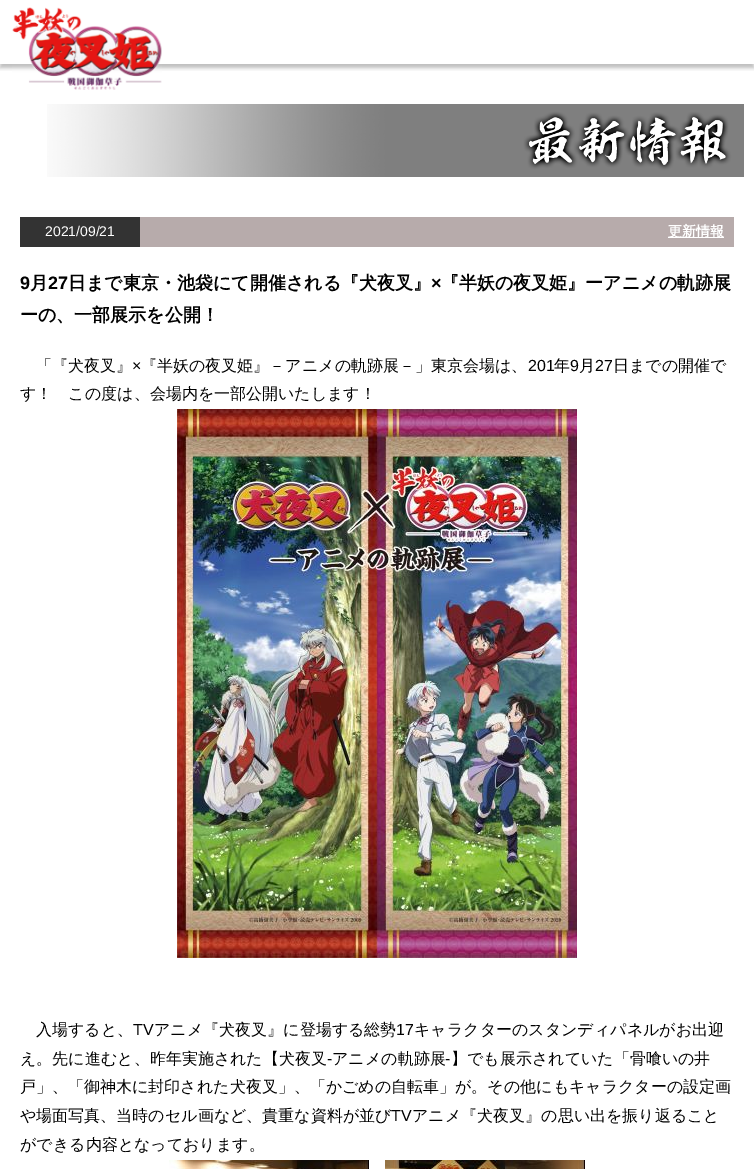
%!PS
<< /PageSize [754 1169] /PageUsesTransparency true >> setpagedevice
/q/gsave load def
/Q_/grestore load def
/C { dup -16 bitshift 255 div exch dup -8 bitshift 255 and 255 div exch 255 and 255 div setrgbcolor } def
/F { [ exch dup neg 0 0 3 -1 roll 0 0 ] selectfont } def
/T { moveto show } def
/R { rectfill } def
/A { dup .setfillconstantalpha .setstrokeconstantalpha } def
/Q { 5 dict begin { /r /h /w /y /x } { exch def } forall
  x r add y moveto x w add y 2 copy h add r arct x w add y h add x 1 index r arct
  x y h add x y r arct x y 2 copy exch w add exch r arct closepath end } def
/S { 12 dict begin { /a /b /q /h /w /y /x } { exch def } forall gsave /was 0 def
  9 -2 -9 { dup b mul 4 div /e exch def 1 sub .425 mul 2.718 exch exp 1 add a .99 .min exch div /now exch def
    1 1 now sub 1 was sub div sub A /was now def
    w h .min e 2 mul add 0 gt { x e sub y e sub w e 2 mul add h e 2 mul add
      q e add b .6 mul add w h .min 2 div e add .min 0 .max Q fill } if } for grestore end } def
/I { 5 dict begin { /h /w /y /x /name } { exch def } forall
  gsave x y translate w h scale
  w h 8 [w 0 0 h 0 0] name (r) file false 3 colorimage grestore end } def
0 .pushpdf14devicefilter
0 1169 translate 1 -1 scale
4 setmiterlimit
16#FFFFFF C
0 0 754 1169 R
q
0 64 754 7 rectclip
16#000000 C
0 4 754 64 0 2 .25 S
Q_
(1.rgb) 12 7 150 83 I
(2.rgb) 47 104 697 73 I
16#333333 C
20 217 120 30 R
/LiberationSans-Regular 14 F
16#FFFFFF C
(2021/09/21) 45 236 T
16#B7ABAB C
140 217 594 30 R
16#FFFFFF C
668 237 56 1 R
/WenQuanYiZenHei-Bold 14 F
(更新情報) 668 236 T
/LiberationSans-Bold 18 F
16#000000 C
(9) 20 289 T
/WenQuanYiZenHei-Bold 18 F
(月) 30 289 T
/LiberationSans-Bold 18 F
(27) 48 289 T
/WenQuanYiZenHei-Bold 18 F
(日まで東京・池袋にて開催される『犬夜叉』) 68 289 T
/LiberationSans-Bold 18 F
(×) 431 289 T
/WenQuanYiZenHei-Bold 18 F
(『半妖の夜叉姫』ーアニメの軌跡展) 441 289 T
(ーの、一部展示を公開！) 20 321 T
/WenQuanYiZenHei-Medium 16 F
(「『犬夜叉』) 36 371 T
/LiberationSans-Regular 16 F
(×) 132 371 T
/WenQuanYiZenHei-Medium 16 F
(『半妖の夜叉姫』－アニメの軌跡展－」東京会場は、) 141 371 T
/LiberationSans-Regular 16 F
(201) 528 371 T
/WenQuanYiZenHei-Medium 16 F
(年) 554 371 T
/LiberationSans-Regular 16 F
(9) 570 371 T
/WenQuanYiZenHei-Medium 16 F
(月) 579 371 T
/LiberationSans-Regular 16 F
(27) 595 371 T
/WenQuanYiZenHei-Medium 16 F
(日までの開催で) 613 371 T
(す！　この度は、会場内を一部公開いたします！) 20 399 T
(3.rgb) 177 409 400 549 I
(入場すると、) 36 1035 T
/LiberationSans-Regular 16 F
(TV) 133 1035 T
/WenQuanYiZenHei-Medium 16 F
(アニメ『犬夜叉』に登場する総勢) 154 1035 T
/LiberationSans-Regular 16 F
(17) 396 1035 T
/WenQuanYiZenHei-Medium 16 F
(キャラクターのスタンディパネルがお出迎) 414 1035 T
(え。先に進むと、昨年実施された【犬夜叉) 20 1064 T
/LiberationSans-Regular 16 F
(-) 327 1064 T
/WenQuanYiZenHei-Medium 16 F
(アニメの軌跡展) 332 1064 T
/LiberationSans-Regular 16 F
(-) 445 1064 T
/WenQuanYiZenHei-Medium 16 F
(】でも展示されていた「骨喰いの井) 451 1064 T
(戸」、「御神木に封印された犬夜叉」、「かごめの自転車」が。その他にもキャラクターの設定画) 20 1092 T
(や場面写真、当時のセル画など、貴重な資料が並び) 20 1121 T
/LiberationSans-Regular 16 F
(TV) 391 1121 T
/WenQuanYiZenHei-Medium 16 F
(アニメ『犬夜叉』の思い出を振り返ること) 412 1121 T
(ができる内容となっております。) 20 1150 T
(4.rgb) 169 1160 200 9 I
(5.rgb) 385 1160 200 9 I
.poppdf14devicefilter showpage
